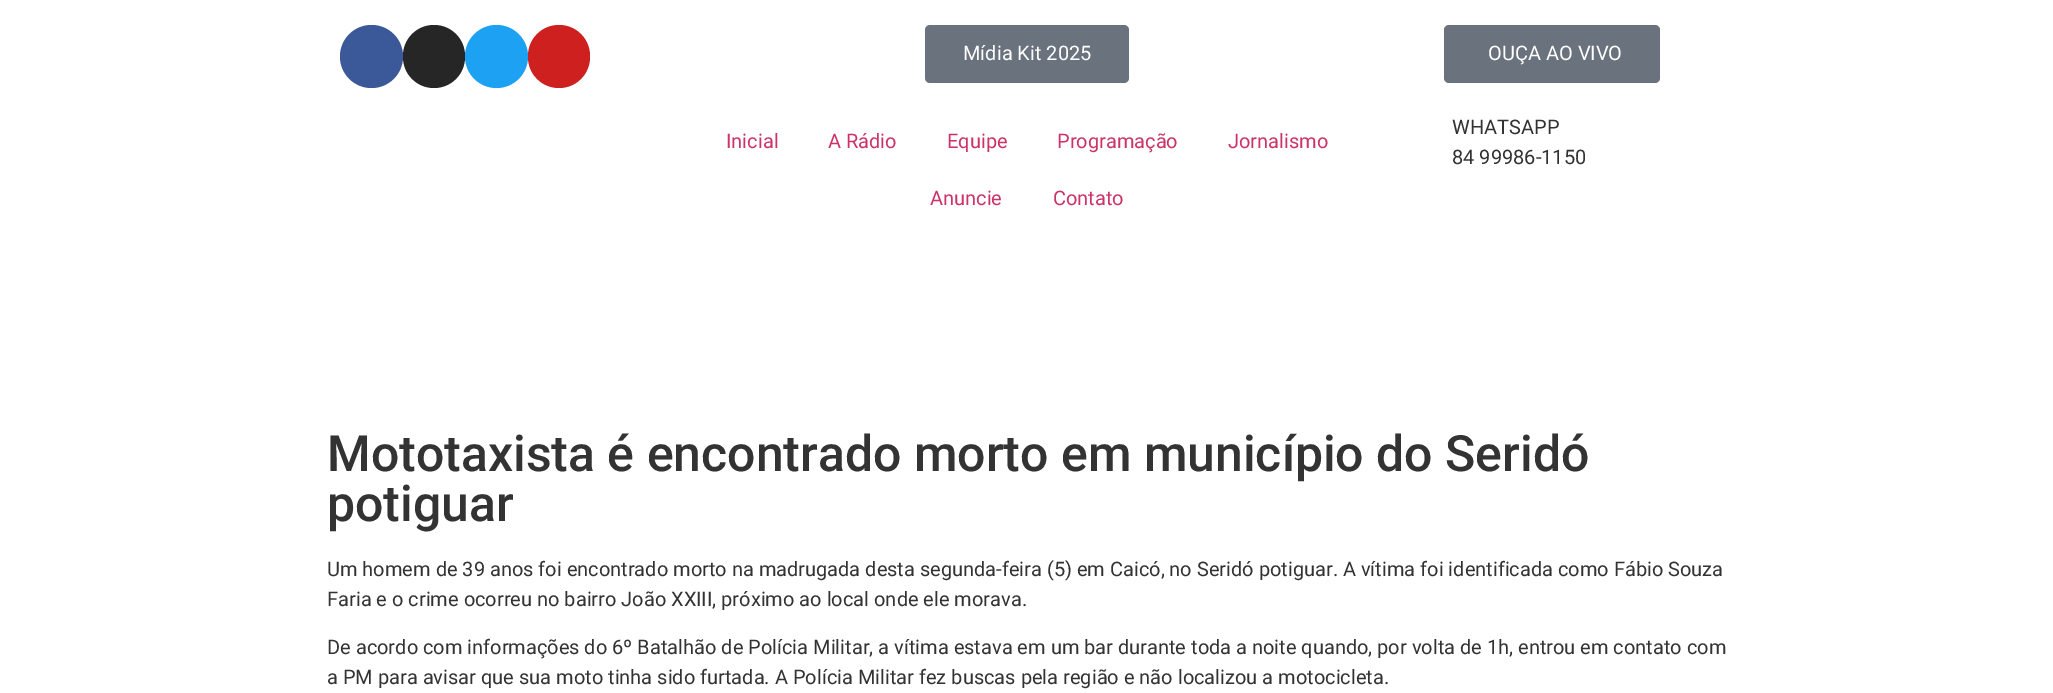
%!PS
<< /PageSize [2053 693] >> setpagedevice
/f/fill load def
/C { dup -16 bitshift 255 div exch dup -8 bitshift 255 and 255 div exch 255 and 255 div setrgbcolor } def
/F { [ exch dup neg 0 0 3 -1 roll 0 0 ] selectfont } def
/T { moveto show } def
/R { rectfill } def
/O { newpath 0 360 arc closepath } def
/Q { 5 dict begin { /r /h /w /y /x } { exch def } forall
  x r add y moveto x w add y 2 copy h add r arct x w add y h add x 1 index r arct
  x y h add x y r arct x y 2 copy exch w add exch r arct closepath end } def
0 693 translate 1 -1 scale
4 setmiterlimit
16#FFFFFF C
0 0 2053 693 R
16#3B5998 C
371.5 56.5 31.5 O f
16#262626 C
403 25 62 63 31 Q f
16#1DA1F2 C
496.5 56.5 31.5 O f
16#CD201F C
528 25 62 63 31 Q f
16#69727D C
925 25 204 58 5 Q f
/Roboto-Regular 20 F
16#FFFFFF C
(Mídia Kit 2025) 963 60 T
16#69727D C
1444 25 216 58 5 Q f
16#FFFFFF C
(OUÇA AO VIVO) 1488 60 T
16#CC3366 C
(Inicial) 726 148 T
(A Rádio) 828 148 T
(Equipe) 947 148 T
(Programação) 1057 148 T
(Jornalismo) 1228 148 T
(Anuncie) 930 205 T
(Contato) 1053 205 T
16#333333 C
(WHATSAPP) 1452 134 T
(84 99986-1150) 1452 164 T
/Roboto-Medium 50 F
(Mototaxista é encontrado morto em município do Seridó) 327 471 T
(potiguar) 327 521 T
/Roboto-Regular 20 F
(Um homem de 39 anos foi encontrado morto na madrugada desta segunda-feira \(5\) em Caicó, no Seridó potiguar. A vítima foi identificada como Fábio Souza) 327 576 T
(Faria e o crime ocorreu no bairro João XXIII, próximo ao local onde ele morava.) 327 606 T
(De acordo com informações do 6º Batalhão de Polícia Militar, a vítima estava em um bar durante toda a noite quando, por volta de 1h, entrou em contato com) 327 654 T
(a PM para avisar que sua moto tinha sido furtada. A Polícia Militar fez buscas pela região e não localizou a motocicleta.) 327 684 T
showpage
